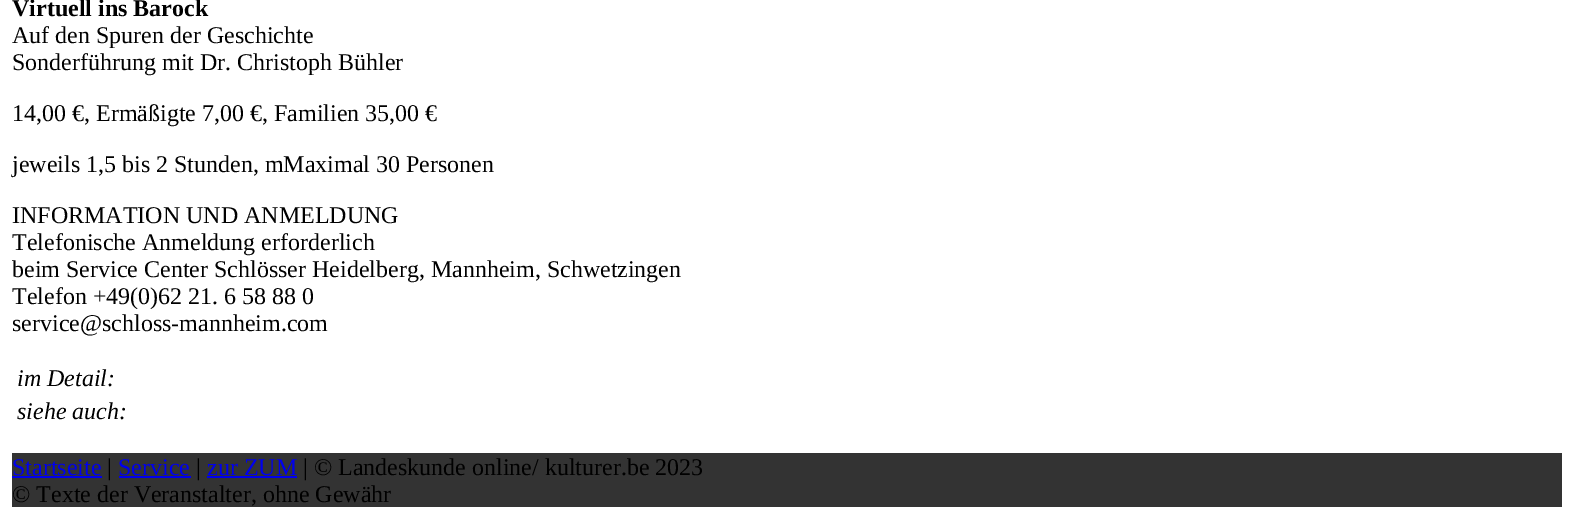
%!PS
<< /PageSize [1573 530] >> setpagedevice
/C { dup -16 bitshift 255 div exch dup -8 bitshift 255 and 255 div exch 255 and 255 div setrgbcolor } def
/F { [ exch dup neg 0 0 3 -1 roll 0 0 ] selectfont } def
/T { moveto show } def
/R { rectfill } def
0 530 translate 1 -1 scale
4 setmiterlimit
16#FFFFFF C
0 0 1573 530 R
/LiberationSerif-Bold 24 F
16#000000 C
(Virtuell ins Barock) 12 16 T
/LiberationSerif-Regular 24 F
(Auf den Spuren der Geschichte) 12 43 T
(Sonderführung mit Dr. Christoph Bühler) 12 70 T
(14,00 €, Ermäßigte 7,00 €, Familien 35,00 €) 12 121 T
(jeweils 1,5 bis 2 Stunden, mMaximal 30 Personen) 12 172 T
(INFORMATION UND ANMELDUNG) 12 223 T
(Telefonische Anmeldung erforderlich) 12 250 T
(beim Service Center Schlösser Heidelberg, Mannheim, Schwetzingen) 12 277 T
(Telefon +49\(0\)62 21. 6 58 88 0) 12 304 T
(service@schloss-mannheim.com) 12 331 T
/LiberationSerif-Italic 24 F
(im Detail:) 17 386 T
(siehe auch:) 17 419 T
16#333333 C
12 453 1550 54 R
/LiberationSerif-Regular 24 F
16#0000EE C
(Startseite) 12 475 T
12 476 90 2 R
16#000000 C
(|) 107 475 T
16#0000EE C
(Service) 118 475 T
119 476 72 2 R
16#000000 C
(|) 196 475 T
16#0000EE C
(zur ZUM) 207 475 T
207 476 90 2 R
16#000000 C
(| © Landeskunde online/ kulturer.be 2023) 303 475 T
(© Texte der Veranstalter, ohne Gewähr) 12 502 T
showpage
